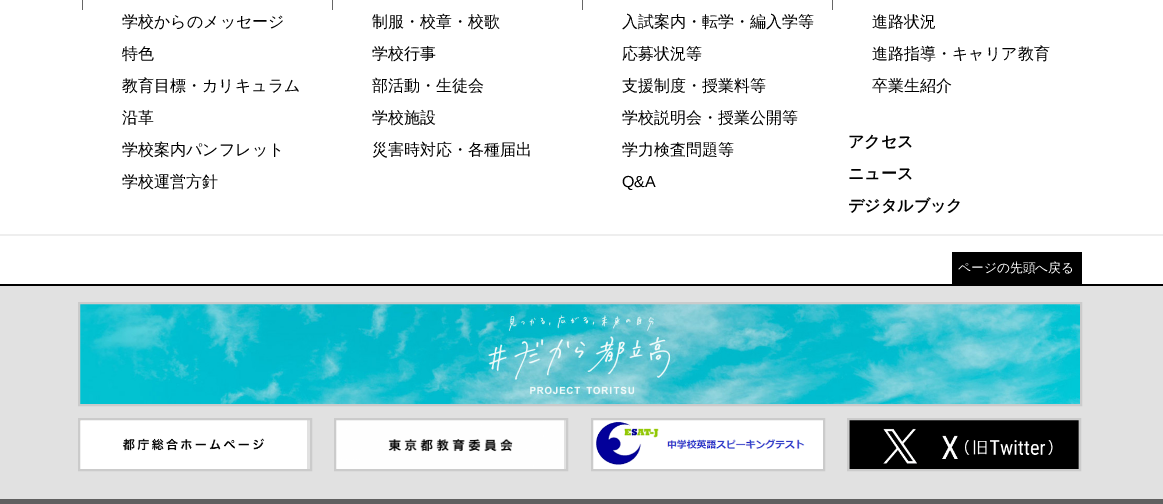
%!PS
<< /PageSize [1163 504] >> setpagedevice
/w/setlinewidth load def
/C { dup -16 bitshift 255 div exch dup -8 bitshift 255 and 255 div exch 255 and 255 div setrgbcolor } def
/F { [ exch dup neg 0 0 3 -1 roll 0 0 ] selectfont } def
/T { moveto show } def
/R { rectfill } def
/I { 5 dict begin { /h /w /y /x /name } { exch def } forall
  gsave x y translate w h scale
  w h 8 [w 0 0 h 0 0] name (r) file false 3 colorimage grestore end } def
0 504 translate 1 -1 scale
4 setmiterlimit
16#FFFFFF C
0 0 1163 504 R
16#666666 C
82 0 1 10 R
/WenQuanYiZenHei-Medium 16 F
16#000000 C
(学校からのメッセージ) 122 27 T
(特色) 122 59 T
(教育目標・カリキュラム) 122 91 T
(沿革) 122 123 T
(学校案内パンフレット) 122 155 T
(学校運営方針) 122 187 T
16#666666 C
332 0 1 10 R
16#000000 C
(制服・校章・校歌) 372 27 T
(学校行事) 372 59 T
(部活動・生徒会) 372 91 T
(学校施設) 372 123 T
(災害時対応・各種届出) 372 155 T
16#666666 C
582 0 1 10 R
16#000000 C
(入試案内・転学・編入学等) 622 27 T
(応募状況等) 622 59 T
(支援制度・授業料等) 622 91 T
(学校説明会・授業公開等) 622 123 T
(学力検査問題等) 622 155 T
/LiberationSans-Regular 16 F
(Q&A) 622 187 T
16#666666 C
832 0 1 10 R
/WenQuanYiZenHei-Medium 16 F
16#000000 C
(進路状況) 872 27 T
(進路指導・キャリア教育) 872 59 T
(卒業生紹介) 872 91 T
/WenQuanYiZenHei-Bold 16 F
(アクセス) 848 147 T
(ニュース) 848 179 T
(デジタルブック) 848 211 T
16#EEEEEE C
0 234 1163 2 R
16#000000 C
952 252 130 32 R
/WenQuanYiZenHei-Medium 12.75 F
16#FFFFFF C
(ページの先頭へ戻る) 958 272 T
16#E1E1E1 C
0 286 1163 213 R
16#000000 C
0 284 1163 2 R
(1.rgb) 80 304 1000 100 I
16#CBCBCB C
2 w
79 303 1002 102 rectstroke
(2.rgb) 80 420 227 49 I
79 419 232 51 rectstroke
(3.rgb) 336 420 228 49 I
335 419 232 51 rectstroke
(4.rgb) 593 420 230 49 I
592 419 232 51 rectstroke
(5.rgb) 849 420 230 49 I
848 419 232 51 rectstroke
16#606060 C
0 499 1163 5 R
showpage
